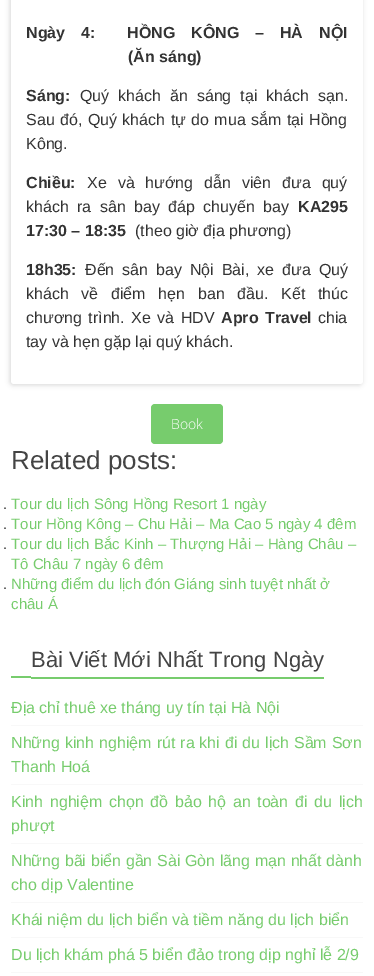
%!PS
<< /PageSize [374 976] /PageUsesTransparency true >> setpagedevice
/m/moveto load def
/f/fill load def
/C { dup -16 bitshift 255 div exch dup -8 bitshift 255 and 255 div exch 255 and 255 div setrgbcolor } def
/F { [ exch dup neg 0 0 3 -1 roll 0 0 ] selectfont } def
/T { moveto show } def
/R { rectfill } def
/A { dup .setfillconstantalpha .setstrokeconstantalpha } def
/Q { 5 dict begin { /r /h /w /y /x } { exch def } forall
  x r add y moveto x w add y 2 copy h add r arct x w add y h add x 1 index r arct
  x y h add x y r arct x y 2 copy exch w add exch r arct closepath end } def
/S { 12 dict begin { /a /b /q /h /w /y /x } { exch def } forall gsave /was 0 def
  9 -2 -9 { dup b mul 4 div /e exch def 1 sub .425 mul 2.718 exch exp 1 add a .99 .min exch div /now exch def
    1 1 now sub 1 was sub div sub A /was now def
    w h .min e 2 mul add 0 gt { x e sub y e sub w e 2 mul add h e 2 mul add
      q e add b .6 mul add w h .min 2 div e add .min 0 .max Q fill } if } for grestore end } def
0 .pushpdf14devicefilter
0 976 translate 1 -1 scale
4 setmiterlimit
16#FFFFFF C
0 0 374 976 R
16#000000 C
10 -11 352 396 3 2.5 .15 S
16#FFFFFF C
11 -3 352 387 3 Q f
/LiberationSans-Bold 16 F
16#333333 C
26 38 m 11.5 0 32 (Ngày 4:  HỒNG KÔNG – HÀ NỘI) widthshow
(\(Ăn sáng\)) 128 62 T
(Sáng:) 26 101 T
/LiberationSans-Regular 16 F
80 101 m 4.5 0 32 (Quý khách ăn sáng tại khách sạn.) widthshow
26 125 m 1 0 32 (Sau đó, Quý khách tự do mua sắm tại Hồng) widthshow
(Kông.) 26 149 T
/LiberationSans-Bold 16 F
(Chiều:) 26 188 T
/LiberationSans-Regular 16 F
87 188 m 6.5 0 32 (Xe và hướng dẫn viên đưa quý) widthshow
26 212 m 4 0 32 (khách ra sân bay đáp chuyến bay) widthshow
/LiberationSans-Bold 16 F
(KA295) 298 212 T
(17:30 – 18:35) 26 236 T
/LiberationSans-Regular 16 F
(\(theo giờ địa phương\)) 135 236 T
/LiberationSans-Bold 16 F
(18h35:) 26 275 T
/LiberationSans-Regular 16 F
85 275 m 3.5 0 32 (Đến sân bay Nội Bài, xe đưa Quý) widthshow
26 299 m 8.25 0 32 (khách về điểm hẹn ban đầu. Kết thúc) widthshow
26 323 m 2 0 32 (chương trình. Xe và HDV) widthshow
/LiberationSans-Bold 16 F
221 323 m 2 0 32 (Apro Travel) widthshow
/LiberationSans-Regular 16 F
(chia) 318 323 T
(tay và hẹn gặp lại quý khách.) 26 347 T
16#77CC6D C
151 404 72 40 4 Q f
/OpenSans-Light 14 F
16#FFFFFF C
(Book) 171 429 T
/LiberationSans-Regular 26 F
16#444444 C
(Related posts:) 11 469 T
/LiberationSans-Regular 15 F
16#333333 C
(.) 3 509 T
16#77CC6D C
(Tour du lịch Sông Hồng Resort 1 ngày) 11 509 T
16#333333 C
(.) 3 529 T
16#77CC6D C
(Tour Hồng Kông – Chu Hải – Ma Cao 5 ngày 4 đêm) 11 529 T
16#333333 C
(.) 3 549 T
16#77CC6D C
(Tour du lịch Bắc Kinh – Thượng Hải – Hàng Châu –) 11 549 T
(Tô Châu 7 ngày 6 đêm) 11 569 T
16#333333 C
(.) 3 589 T
16#77CC6D C
(Những điểm du lịch đón Giáng sinh tuyệt nhất ở) 11 589 T
(châu Á) 11 609 T
/LiberationSans-Regular 22 F
16#444444 C
(Bài Viết Mới Nhất Trong Ngày) 31 667 T
16#77CC6D C
11 676 20 2 R
31 677 293 2 R
16#F8F8F8 C
11 725 352 1 R
/LiberationSans-Regular 16 F
16#77CC6D C
(Địa chỉ thuê xe tháng uy tín tại Hà Nội) 11 713 T
16#F8F8F8 C
11 784 352 1 R
16#77CC6D C
11 748 m .5 0 32 (Những kinh nghiệm rút ra khi đi du lịch Sầm Sơn) widthshow
(Thanh Hoá) 11 772 T
16#F8F8F8 C
11 843 352 1 R
16#77CC6D C
11 807 m 2.25 0 32 (Kinh nghiệm chọn đồ bảo hộ an toàn đi du lịch) widthshow
(phượt) 11 831 T
16#F8F8F8 C
11 902 352 1 R
16#77CC6D C
11 866 m .25 0 32 (Những bãi biển gần Sài Gòn lãng mạn nhất dành) widthshow
(cho dịp Valentine) 11 890 T
16#F8F8F8 C
11 937 352 1 R
16#77CC6D C
(Khái niệm du lịch biển và tiềm năng du lịch biển) 11 925 T
16#F8F8F8 C
11 972 352 1 R
16#77CC6D C
(Du lịch khám phá 5 biển đảo trong dịp nghỉ lễ 2/9) 11 960 T
.poppdf14devicefilter showpage
